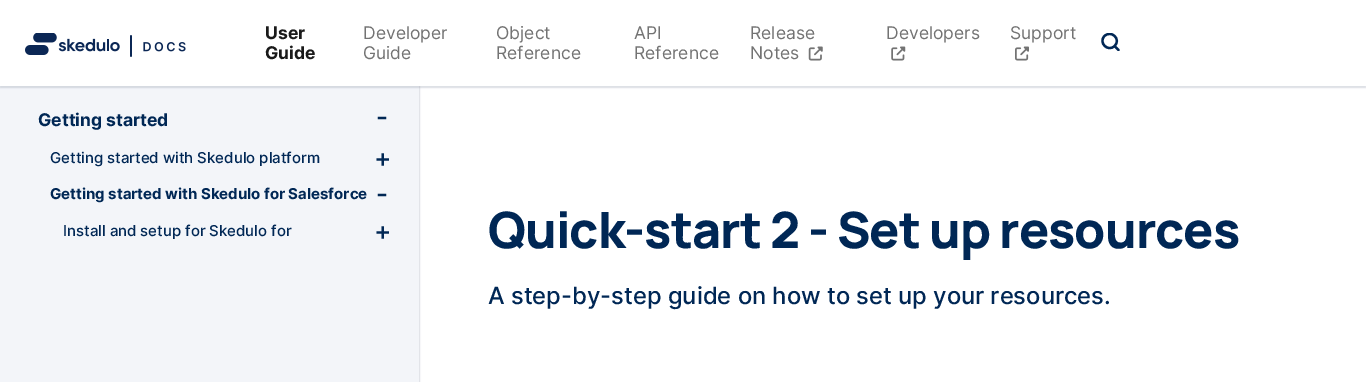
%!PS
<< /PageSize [1366 382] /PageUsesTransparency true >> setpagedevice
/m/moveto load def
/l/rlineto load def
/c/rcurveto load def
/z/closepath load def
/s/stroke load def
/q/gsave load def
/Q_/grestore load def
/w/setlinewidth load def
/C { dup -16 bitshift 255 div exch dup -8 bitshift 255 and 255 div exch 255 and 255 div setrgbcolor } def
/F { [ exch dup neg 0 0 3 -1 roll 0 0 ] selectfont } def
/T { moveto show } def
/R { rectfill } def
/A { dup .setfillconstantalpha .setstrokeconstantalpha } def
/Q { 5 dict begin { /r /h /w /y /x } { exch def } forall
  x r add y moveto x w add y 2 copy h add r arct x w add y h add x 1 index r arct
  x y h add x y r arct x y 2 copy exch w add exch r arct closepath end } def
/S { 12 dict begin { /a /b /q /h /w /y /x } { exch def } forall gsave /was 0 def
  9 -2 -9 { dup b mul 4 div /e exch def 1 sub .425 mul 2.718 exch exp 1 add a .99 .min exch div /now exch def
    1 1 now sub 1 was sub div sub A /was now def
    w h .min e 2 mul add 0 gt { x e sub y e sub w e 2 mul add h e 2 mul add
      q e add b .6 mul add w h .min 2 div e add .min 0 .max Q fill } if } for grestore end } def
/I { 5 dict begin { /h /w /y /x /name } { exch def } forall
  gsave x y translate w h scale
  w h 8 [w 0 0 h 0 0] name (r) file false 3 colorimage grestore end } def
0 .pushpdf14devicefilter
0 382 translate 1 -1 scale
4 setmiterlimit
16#FFFFFF C
0 0 1366 382 R
16#5E6584 C
1 86 419 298 0 .5 .2 S
16#F3F5F9 C
0 86 419 296 R
16#5E6584 C
0 1 1366 87 0 .5 .2 S
16#FFFFFF C
0 0 1366 86 R
(1.rgb) 25 33 161 24 I
/Inter-Bold 17.5 F
16#1A1A1A C
(User) 265 39 T
(Guide) 265 59 T
/Inter-Regular 17.5 F
16#737373 C
(Developer) 363 39 T
(Guide) 363 59 T
(Object) 496 39 T
(Reference) 496 59 T
(API) 634 39 T
(Reference) 634 59 T
(Release) 750 39 T
(Notes) 750 59 T
(2.rgb) 808 46 15 15 I
(Developers) 886 39 T
(3.rgb) 891 46 15 15 I
(Support) 1010 39 T
(4.rgb) 1015 46 14 15 I
q
1101 33 19 18 rectclip
16#002755 C
2.3 w
1 setlinecap
1 setlinejoin
1114.5 46 m 4 4 l -4 -4 l -6.5 6.5 -16.5 -3.5 -10 -10 c 7 -6.5 17 3.5 10 10 c z s
Q_
/Inter-Bold 17.5 F
16#002755 C
(Getting started) 38 126 T
/Inter-Medium 26 F
(-) 376 126 T
/Inter-Medium 15 F
(Getting started with Skedulo platform) 50 163 T
/Inter-Medium 26 F
(+) 374 167 T
/Inter-Bold 15 F
(Getting started with Skedulo for Salesforce) 50 199 T
/Inter-Medium 26 F
(-) 376 203 T
/Inter-Medium 15 F
(Install and setup for Skedulo for) 63 236 T
/Inter-Medium 26 F
(+) 374 240 T
/Manrope-ExtraBold 50 F
488 248 m -1 0 (Quick-start 2 - Set up resources) ashow
/Inter-Medium 23.75 F
(A step-by-step guide on how to set up your resources.) 488 304 T
.poppdf14devicefilter showpage
